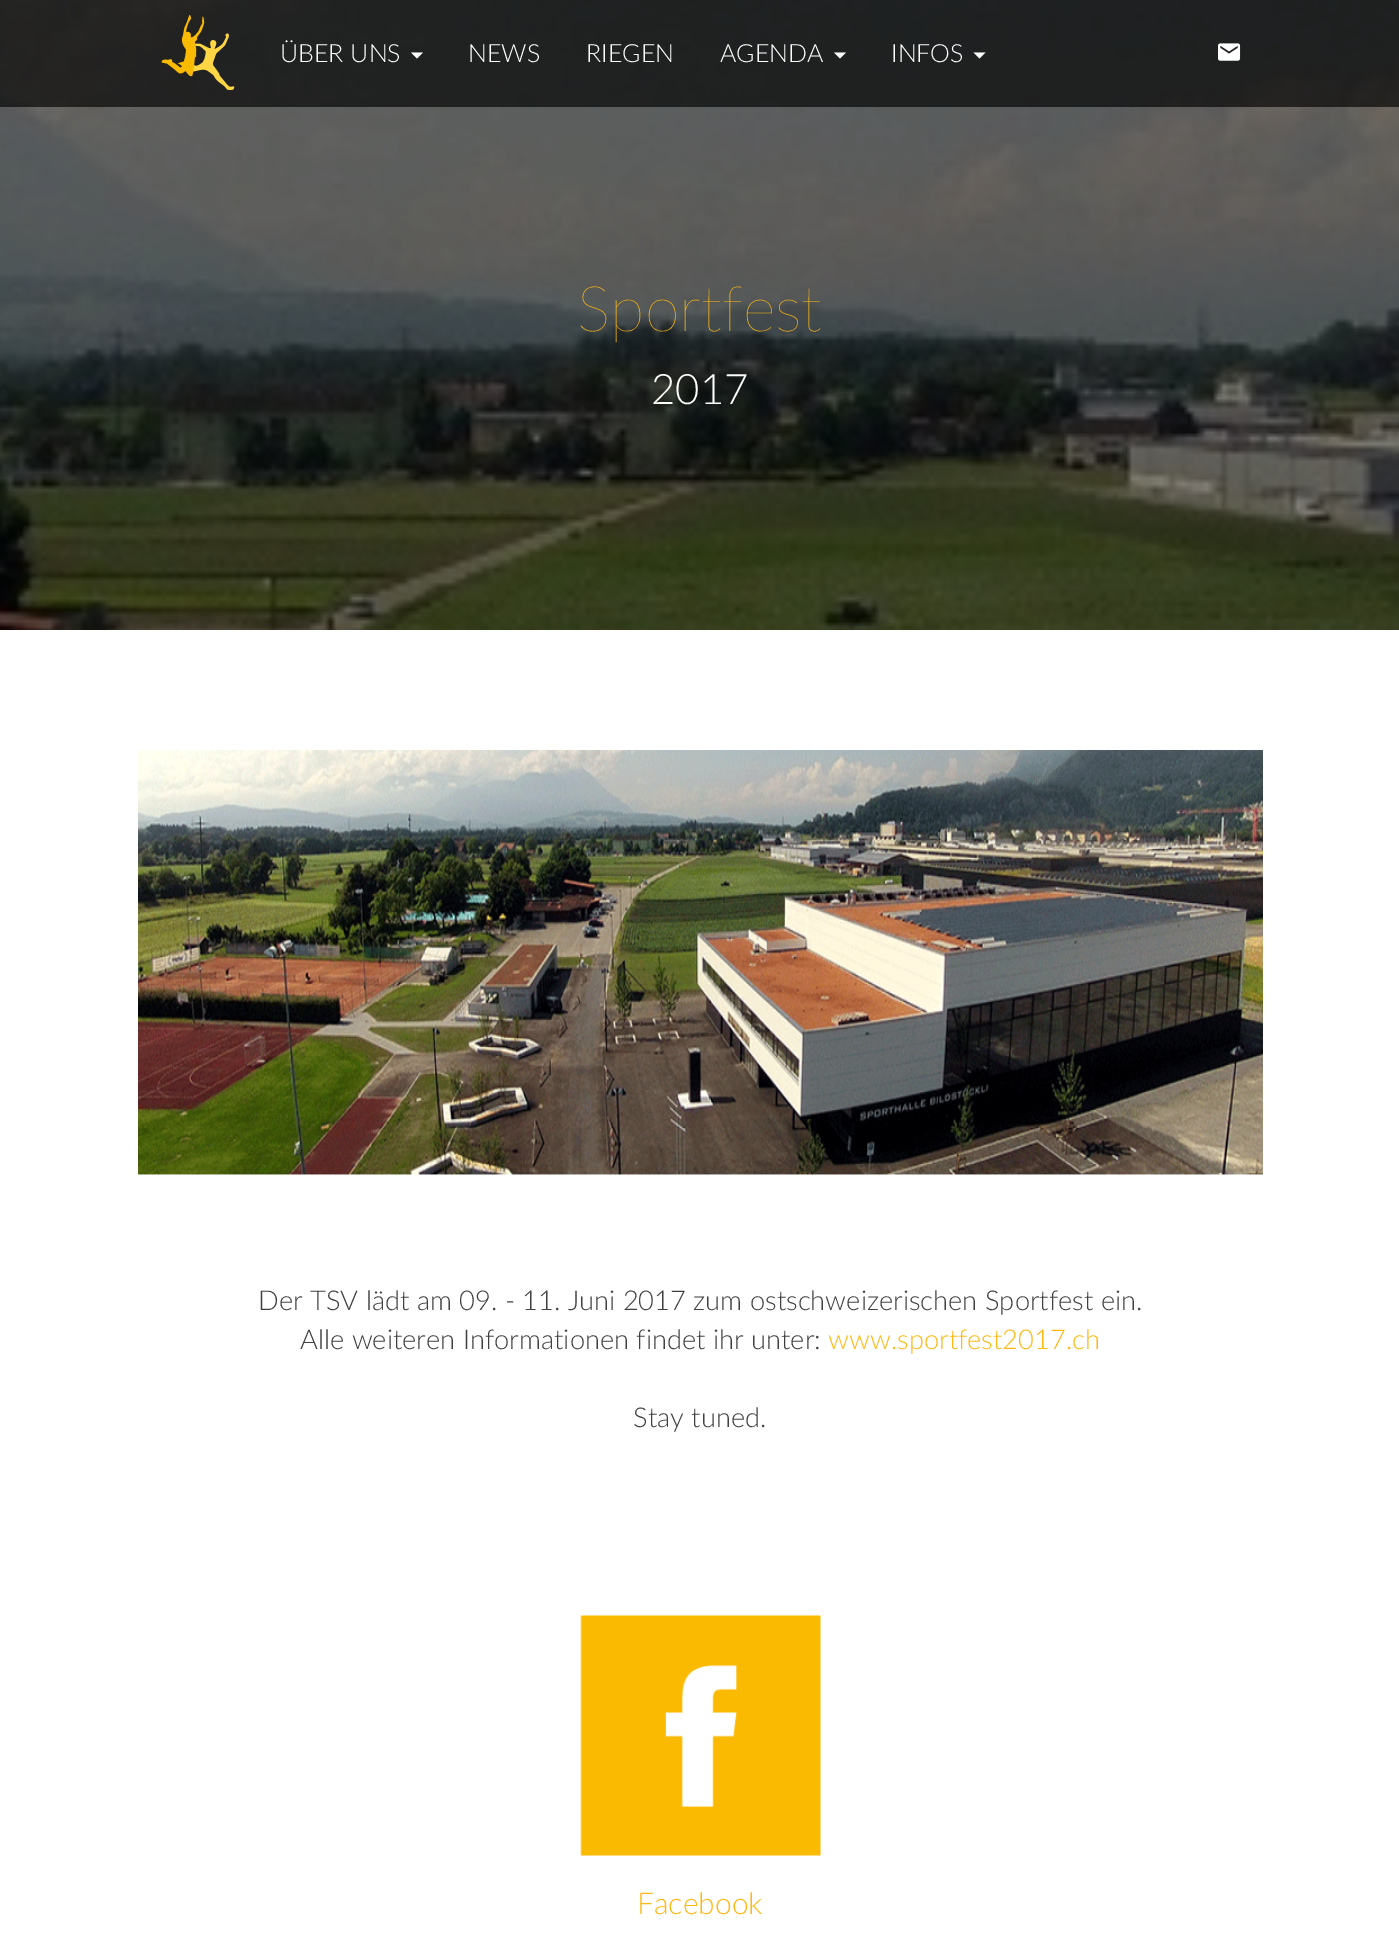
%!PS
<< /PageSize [1399 1947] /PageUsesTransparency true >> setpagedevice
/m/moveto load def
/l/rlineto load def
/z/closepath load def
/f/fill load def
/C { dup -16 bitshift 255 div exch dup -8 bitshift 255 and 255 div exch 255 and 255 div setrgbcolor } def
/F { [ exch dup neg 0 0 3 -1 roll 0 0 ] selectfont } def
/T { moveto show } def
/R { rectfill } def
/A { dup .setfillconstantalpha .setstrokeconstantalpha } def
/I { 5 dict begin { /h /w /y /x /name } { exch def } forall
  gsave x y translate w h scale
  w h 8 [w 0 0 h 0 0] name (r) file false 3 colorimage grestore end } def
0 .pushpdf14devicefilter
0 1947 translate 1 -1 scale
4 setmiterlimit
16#FFFFFF C
0 0 1399 1947 R
(3.rgb) 0 0 1399 630 I
0.65 A
16#000000 C
0 0 1399 107 R
1 A
(1.rgb) 161 15 74 75 I
/Lato-Light 25 F
16#FFFFFF C
(ÜBER UNS) 280 62 T
411 52.5 m 12 0 l -6 6 l z f
(NEWS) 468 62 T
(RIEGEN) 586 62 T
(AGENDA) 720 62 T
834 52.5 m 12 0 l -6 6 l z f
(INFOS) 891 62 T
973.5 52.5 m 12 0 l -6 6 l z f
(2.rgb) 1218 43 23 18 I
/Lato-ExtraLight 63 F
16#FFB812 C
(Sportfest) 577 331 T
/Lato-Light 42 F
16#FFFFFF C
(2017) 651 404 T
(4.rgb) 138 750 1125 425 I
/Lato-Light 27.3 F
16#404040 C
(Der TSV lädt am 09. - 11. Juni 2017 zum ostschweizerischen Sportfest ein.) 258 1310 T
(Alle weiteren Informationen findet ihr unter:) 300 1349 T
16#FFB812 C
(www.sportfest2017.ch) 828 1349 T
16#404040 C
(Stay tuned.) 633 1427 T
(5.rgb) 580 1615 241 241 I
/Lato-Light 30 F
16#FFB812 C
(Facebook) 637 1914 T
.poppdf14devicefilter showpage
